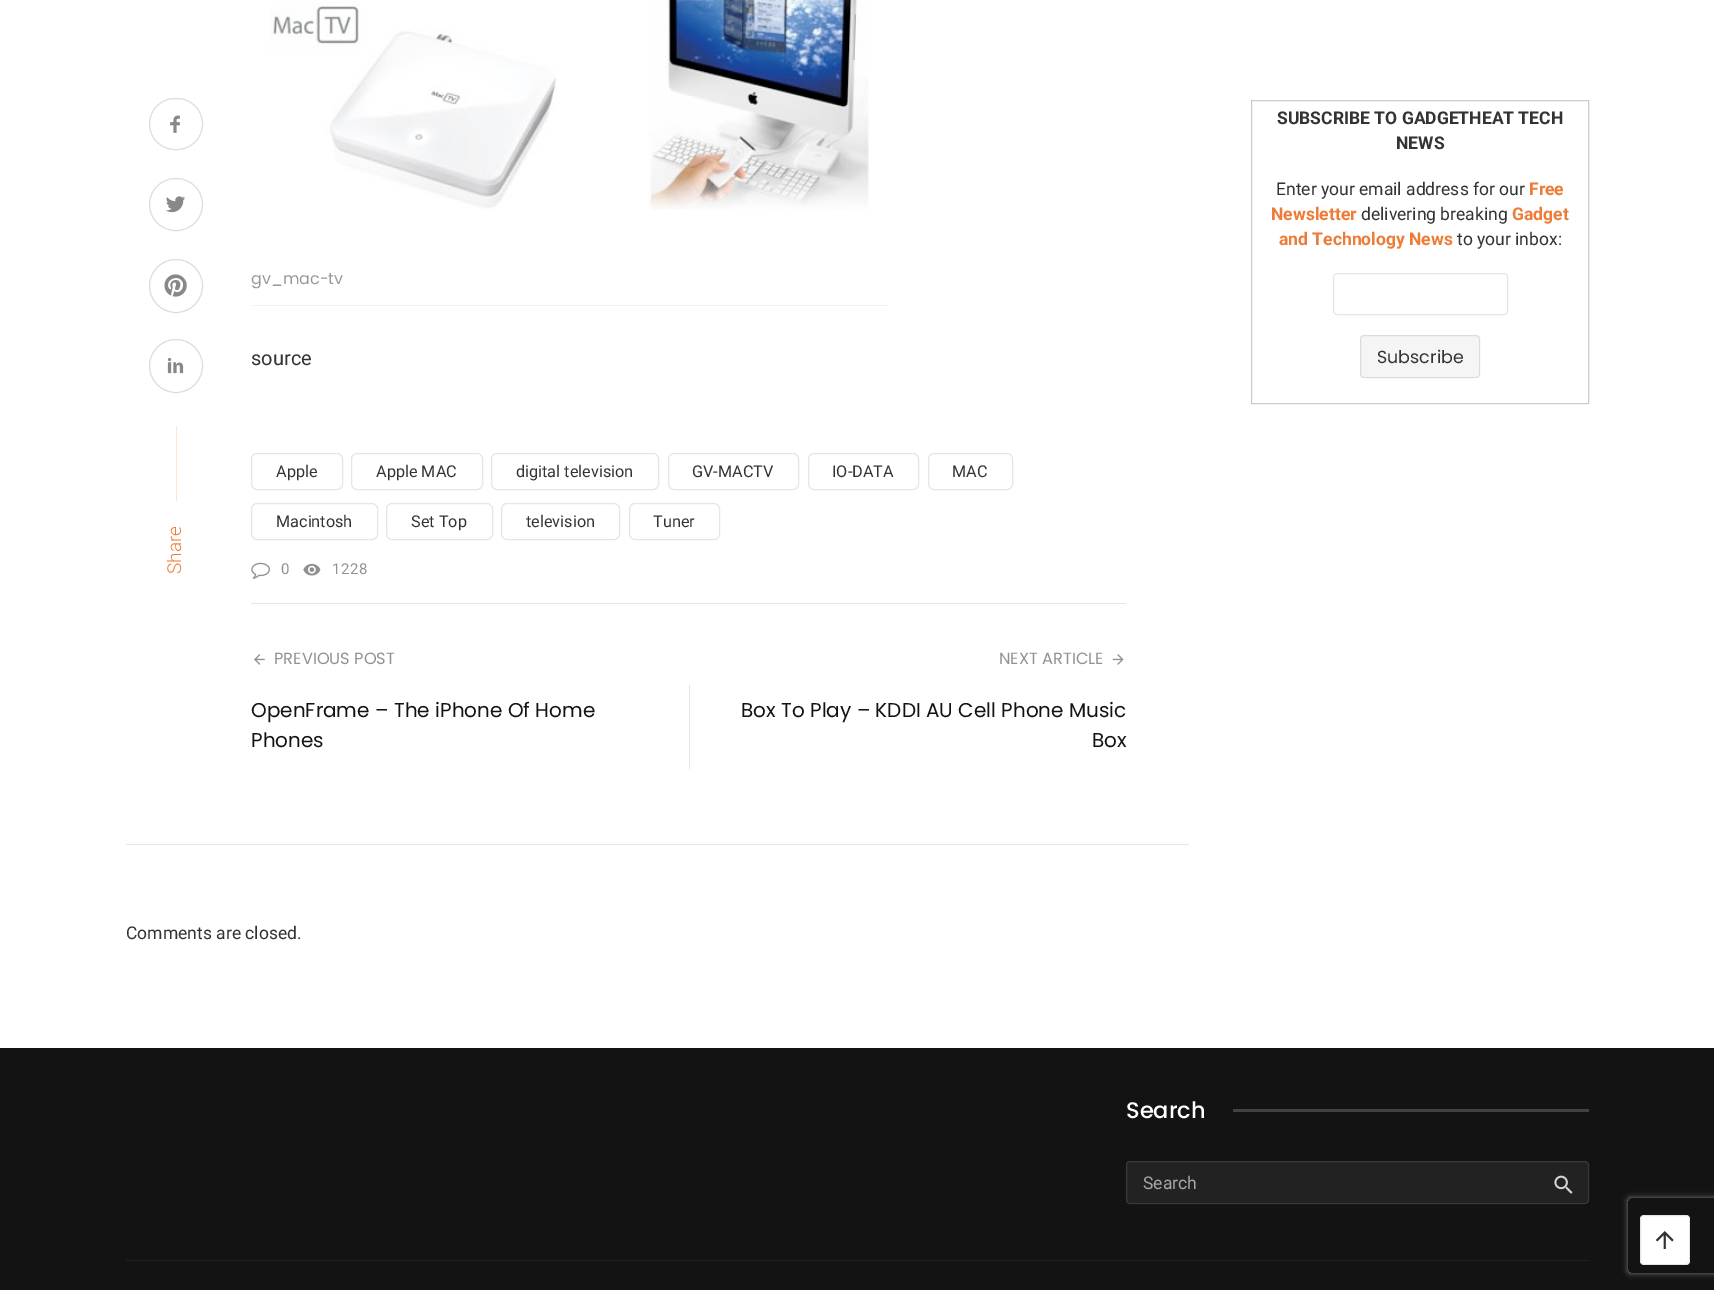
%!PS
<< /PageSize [1714 1290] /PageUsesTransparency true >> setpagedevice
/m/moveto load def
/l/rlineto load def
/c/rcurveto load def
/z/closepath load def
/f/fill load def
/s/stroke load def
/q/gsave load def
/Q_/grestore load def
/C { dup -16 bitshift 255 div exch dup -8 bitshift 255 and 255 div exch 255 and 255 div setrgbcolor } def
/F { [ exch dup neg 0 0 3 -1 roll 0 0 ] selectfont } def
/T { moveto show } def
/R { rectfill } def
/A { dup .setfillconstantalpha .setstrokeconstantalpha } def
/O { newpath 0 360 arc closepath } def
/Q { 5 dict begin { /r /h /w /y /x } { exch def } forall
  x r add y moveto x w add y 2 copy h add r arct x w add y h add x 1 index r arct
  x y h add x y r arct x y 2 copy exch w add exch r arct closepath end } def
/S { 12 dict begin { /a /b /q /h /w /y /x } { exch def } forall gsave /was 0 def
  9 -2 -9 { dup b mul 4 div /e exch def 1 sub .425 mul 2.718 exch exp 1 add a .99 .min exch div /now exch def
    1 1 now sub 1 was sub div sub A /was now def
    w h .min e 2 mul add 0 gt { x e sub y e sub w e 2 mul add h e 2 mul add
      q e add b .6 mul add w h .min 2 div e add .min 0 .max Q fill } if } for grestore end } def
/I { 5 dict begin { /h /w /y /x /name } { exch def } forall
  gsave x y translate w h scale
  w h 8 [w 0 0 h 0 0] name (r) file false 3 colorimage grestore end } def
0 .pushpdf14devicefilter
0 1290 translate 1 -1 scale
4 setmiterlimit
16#FFFFFF C
0 0 1714 1290 R
16#CCCCCC C
1251.5 100.5 337 303 rectstroke
/Roboto-Bold 17.5 F
16#333333 C
(SUBSCRIBE TO GADGETHEAT TECH) 1277 124 T
(NEWS) 1396 149 T
/Roboto-Regular 17.5 F
(Enter your email address for our) 1276 195 T
/Roboto-Bold 17.5 F
16#EC7C37 C
(Free) 1529 195 T
(Newsletter) 1271 220 T
/Roboto-Regular 17.5 F
16#333333 C
(delivering breaking) 1361 220 T
/Roboto-Bold 17.5 F
16#EC7C37 C
(Gadget) 1512 220 T
(and Technology News) 1279 245 T
/Roboto-Regular 17.5 F
16#333333 C
(to your inbox:) 1457 245 T
16#E6E6E6 C
1333.5 273.5 174 41 3.5 Q s
16#F5F5F5 C
1360 335 120 43 4 Q f
0.1 A
16#000000 C
1360.5 335.5 119 42 3.5 Q s
/Poppins-Regular 17.5 F
1 A
16#333333 C
(Subscribe) 1377 363 T
16#DDDDDD C
149.5 98.5 53 51 25.5 Q s
(1.rgb) 170 115 10 18 I
149.5 178.5 53 52 26 Q s
(2.rgb) 166 196 19 17 I
176 286 26.5 O s
(3.rgb) 164 274 23 23 I
176 366 26.5 O s
(4.rgb) 167 357 17 17 I
16#FBE5D7 C
176 426 1 75 R
/Roboto-Light 19 F
16#EC7C37 C
q 181 574 translate -90 rotate 0 0 m (Share) show Q_
16#E6E6E6 C
251 603 875 1 R
(5.rgb) 270 0 599 210 I
16#F2F2F2 C
251 305 637 1 R
/Poppins-Regular 16 F
16#999999 C
(gv_mac-tv) 251 284 T
/Roboto-Regular 20 F
16#333333 C
(source) 251 365 T
16#E6E6E6 C
251.5 453.5 91 36 5.5 Q s
/Roboto-Regular 16.25 F
16#333333 C
(Apple) 276 477 T
16#E6E6E6 C
351.5 453.5 131 36 5.5 Q s
16#333333 C
(Apple MAC) 376 477 T
16#E6E6E6 C
491.5 453.5 167 36 5.5 Q s
16#333333 C
(digital television) 516 477 T
16#E6E6E6 C
668.5 453.5 130 36 5.5 Q s
16#333333 C
(GV-MACTV) 692 477 T
16#E6E6E6 C
808.5 453.5 110 36 5.5 Q s
16#333333 C
(IO-DATA) 832 477 T
16#E6E6E6 C
928.5 453.5 84 36 5.5 Q s
16#333333 C
(MAC) 952 477 T
16#E6E6E6 C
251.5 503.5 126 36 5.5 Q s
16#333333 C
(Macintosh) 276 527 T
16#E6E6E6 C
386.5 503.5 106 36 5.5 Q s
16#333333 C
(Set Top) 411 527 T
16#E6E6E6 C
501.5 503.5 118 36 5.5 Q s
16#333333 C
(television) 526 527 T
16#E6E6E6 C
629.5 503.5 90 36 5.5 Q s
16#333333 C
(Tuner) 653 527 T
(6.rgb) 251 562 19 17 I
/Roboto-Regular 15 F
16#919191 C
281 574 m .5 0 (0) ashow
(7.rgb) 303 563 18 13 I
332 574 m .5 0 (1228) ashow
(8.rgb) 254 654 11 11 I
/Poppins-Regular 16.25 F
(PREVIOUS POST) 274 664 T
/Poppins-Regular 20 F
16#131313 C
(OpenFrame – The iPhone Of Home) 251 717 T
(Phones) 251 747 T
16#E6E6E6 C
689 685 1 84 R
/Poppins-Regular 16.25 F
16#919191 C
(NEXT ARTICLE) 999 664 T
(9.rgb) 1112 654 12 11 I
/Poppins-Regular 20 F
16#131313 C
(Box To Play – KDDI AU Cell Phone Music) 741 717 T
(Box) 1092 747 T
16#E6E6E6 C
126 844 1063 1 R
/Roboto-Regular 17.5 F
16#333333 C
(Comments are closed.) 126 939 T
16#131313 C
0 1048 1714 242 R
/Poppins-Medium 22.5 F
16#FFFFFF C
(Search) 1126 1118 T
16#424242 C
1233 1109 356 3 R
16#222222 C
1126 1161 463 43 4 Q f
0.1 A
16#FFFFFF C
1126.5 1161.5 462 42 3.5 Q s
/Roboto-Regular 17.5 F
1 A
16#A7A7A7 C
(Search) 1143 1189 T
(10.rgb) 1554 1175 19 19 I
16#212121 C
126 1260 1463 1 R
q
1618 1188 m 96 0 l 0 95 l -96 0 l z 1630.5 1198 m 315 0 l 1.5 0 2.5 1 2.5 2.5 c 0 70 l 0 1.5 -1 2.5 -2.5 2.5 c -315 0 l -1.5 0 -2.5 -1 -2.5 -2.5 c 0 -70 l 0 -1.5 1 -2.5 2.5 -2.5 c z eoclip newpath
16#808080 C
1628 1198 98 75 2.5 3 1 S
Q_
16#FFFFFF C
1640 1215 50 50 4 Q f
0.1 A
16#000000 C
1640.5 1215.5 49 49 3.5 Q s
1 A
(11.rgb) 1655 1231 19 18 I
.poppdf14devicefilter showpage
